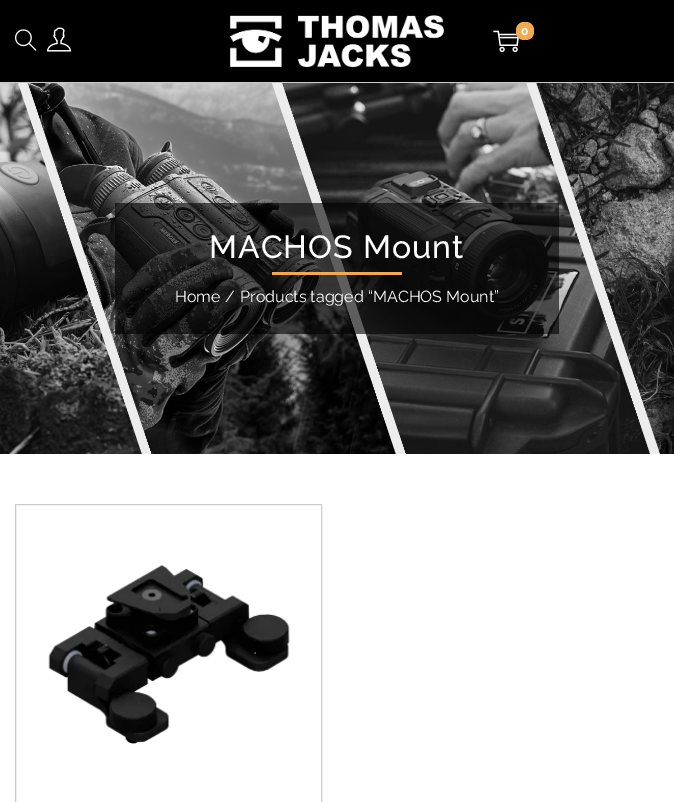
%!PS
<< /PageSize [674 802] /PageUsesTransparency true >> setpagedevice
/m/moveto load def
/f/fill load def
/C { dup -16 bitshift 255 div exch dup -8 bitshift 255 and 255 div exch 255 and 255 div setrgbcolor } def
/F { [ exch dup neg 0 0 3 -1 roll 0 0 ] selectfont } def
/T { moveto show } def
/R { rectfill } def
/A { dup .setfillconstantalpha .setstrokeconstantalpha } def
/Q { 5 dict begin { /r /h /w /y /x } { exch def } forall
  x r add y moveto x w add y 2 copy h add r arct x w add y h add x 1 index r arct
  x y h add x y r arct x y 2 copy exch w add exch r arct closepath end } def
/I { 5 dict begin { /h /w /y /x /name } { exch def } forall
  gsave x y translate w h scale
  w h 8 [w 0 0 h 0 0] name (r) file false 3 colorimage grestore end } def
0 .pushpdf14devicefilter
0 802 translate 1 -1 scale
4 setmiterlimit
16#FFFFFF C
0 0 674 802 R
16#000000 C
0 0 674 82 R
16#CCCCCC C
0 82 674 1 R
(1.rgb) 15 29 22 22 I
(2.rgb) 47 27 24 25 I
(3.rgb) 230 15 214 52 I
(4.rgb) 493 30 26 23 I
16#F3AA4E C
516 22 18 18 8 Q f
/Raleway-Bold 12 F
16#FFFFFF C
(0) 521 35 T
(5.rgb) 0 83 674 371 I
0.6 A
16#000000 C
115 203 444 131 R
/Raleway-Medium 32 F
1 A
16#FFFFFF C
209 258 m 1 0 (MACHOS Mount) ashow
16#F3AA4E C
272 272 130 3 R
/Raleway-Regular 16 F
16#FFFFFF C
(Home) 175 302 T
(/) 225 302 T
(Products tagged “MACHOS Mount”) 240 302 T
16#CCCCCC C
15.5 504.5 306 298 rectstroke
(6.rgb) 48 565 242 179 I
.poppdf14devicefilter showpage
